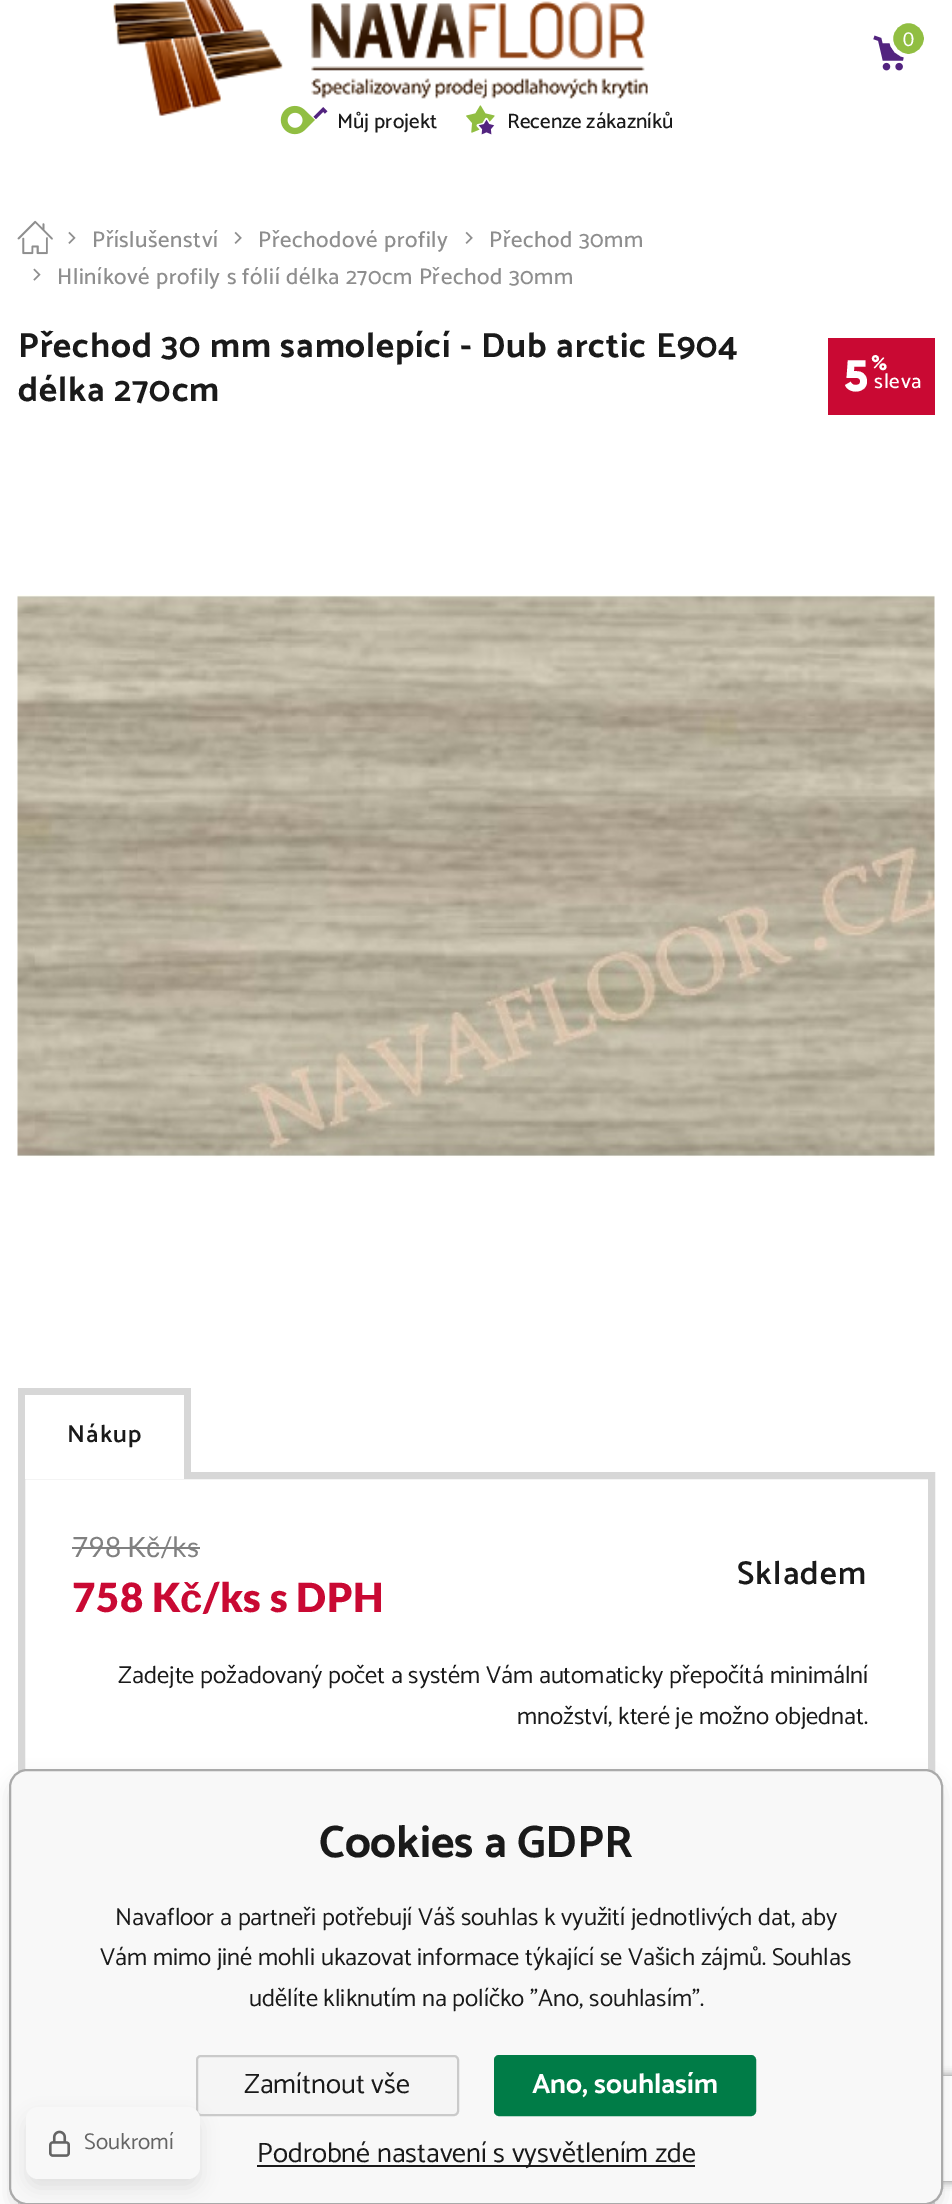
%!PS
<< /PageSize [952 2204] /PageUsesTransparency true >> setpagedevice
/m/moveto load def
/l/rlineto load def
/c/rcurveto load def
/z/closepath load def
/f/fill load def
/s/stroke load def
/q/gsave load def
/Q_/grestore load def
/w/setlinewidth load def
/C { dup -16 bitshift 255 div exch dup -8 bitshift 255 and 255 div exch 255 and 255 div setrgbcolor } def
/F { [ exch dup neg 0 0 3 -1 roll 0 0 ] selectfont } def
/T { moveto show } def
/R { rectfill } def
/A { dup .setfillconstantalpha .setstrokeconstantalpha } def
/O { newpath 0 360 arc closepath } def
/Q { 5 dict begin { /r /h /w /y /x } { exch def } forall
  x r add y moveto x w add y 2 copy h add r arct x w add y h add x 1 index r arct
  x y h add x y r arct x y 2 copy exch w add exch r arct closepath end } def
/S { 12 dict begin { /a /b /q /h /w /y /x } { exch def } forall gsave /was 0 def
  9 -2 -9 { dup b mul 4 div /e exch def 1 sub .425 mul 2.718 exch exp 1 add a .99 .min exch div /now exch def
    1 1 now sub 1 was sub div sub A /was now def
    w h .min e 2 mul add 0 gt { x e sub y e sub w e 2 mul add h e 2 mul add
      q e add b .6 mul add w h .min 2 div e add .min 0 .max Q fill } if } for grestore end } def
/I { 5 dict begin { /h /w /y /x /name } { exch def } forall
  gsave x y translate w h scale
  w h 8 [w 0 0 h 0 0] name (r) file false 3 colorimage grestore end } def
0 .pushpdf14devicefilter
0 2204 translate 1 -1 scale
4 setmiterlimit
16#FFFFFF C
0 0 952 2204 R
(1.rgb) 113 0 535 116 I
(2.rgb) 873 35 31 36 I
16#91BE42 C
908.5 38.5 17.5 O q f Q_
16#FFFFFF C
4 w
s
/Lato-Regular 19 F
(0) 903 46 T
(3.rgb) 280 105 48 30 I
/Catamaran-Medium 21 F
16#1A1A1A C
(Můj projekt) 337 128 T
(4.rgb) 466 105 29 30 I
(Recenze zákazníků) 507 128 T
(5.rgb) 17 220 36 35 I
(6.rgb) 68 231 8 13 I
/Catamaran-Medium 22.75 F
16#8E8E8E C
92 247 m .55 0 (Příslušenství) ashow
(7.rgb) 234 231 8 13 I
258 247 m .55 0 (Přechodové profily) ashow
(7.rgb) 465 231 8 13 I
489 247 m .55 0 (Přechod 30mm) ashow
(8.rgb) 33 268 8 13 I
57 284 m .55 0 (Hliníkové profily s fólií délka 270cm Přechod 30mm) ashow
/Catamaran-Bold 35 F
16#1A1A1A C
18 357 m .9 0 (Přechod 30 mm samolepící - Dub arctic E904) ashow
18 401 m .9 0 (délka 270cm) ashow
16#C90933 C
828 338 107 77 R
/Gilroy-ExtraBold 44 F
16#FFFFFF C
(5) 844 391 T
/Gilroy-ExtraBold 21 F
(%) 871 370 T
/Catamaran-Medium 21 F
874 388 m .75 0 (sleva) ashow
(9.rgb) 17 595 918 563 I
16#D7D7D7 C
18 1388 173 7 R
184 1388 7 84 R
18 1388 7 84 R
/Catamaran-SemiBold 24.5 F
16#1A1A1A C
67 1442 m 1.25 0 (Nákup) ashow
16#D7D7D7 C
7 w
21.5 1475.5 910 523 rectstroke
16#FFFFFF C
25 1472 159 7 R
/Lato-Regular 28 F
16#808080 C
72 1557 m .25 0 (798 K) ashow
72 1547 49 2 R
/LiberationSans-Regular 28 F
146 1557 m .25 0 (č) ashow
/Lato-Regular 28 F
161 1557 m .25 0 (/ks) ashow
121 1547 79 2 R
/Lato-Black 40.25 F
16#C90933 C
72 1612 m .5 0 (758 K) ashow
/LiberationSans-Bold 40.25 F
180 1612 m .5 0 (č) ashow
/Lato-Black 40.25 F
203 1612 m .5 0 (/ks s DPH) ashow
/Catamaran-SemiBold 33 F
16#1A1A1A C
737 1584 m 1.25 0 (Skladem) ashow
/Catamaran-Regular 24.5 F
(Zadejte požadovaný počet a systém Vám automaticky přepočítá minimální) 118 1683 T
(množství, které je možno objednat.) 517 1724 T
16#C6C6C6 C
18 2202 1 2 R
16#EFEFEF C
19 2203 914 1 R
16#C6C6C6 C
933 2202 2 2 R
16#C8C8C8 C
9 1778 934 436 18 9 .5 S
q
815 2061 m 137 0 l 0 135 l -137 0 l z 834 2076 m 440 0 l 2 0 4 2 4 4 c 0 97 l 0 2 -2 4 -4 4 c -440 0 l -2 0 -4 -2 -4 -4 c 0 -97 l 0 -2 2 -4 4 -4 c z eoclip newpath
16#808080 C
830 2076 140 105 4 4.5 1 S
Q_
16#F8F8F8 C
10 1770 932 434 17 Q q f Q_
16#AAAAAA C
2 w
s
/Catamaran-Bold 45.5 F
16#1A1A1A C
(Cookies a GDPR) 319 1857 T
/Catamaran-Regular 24.5 F
(Navafloor a partneři potřebují Váš souhlas k využití jednotlivých dat, aby) 115 1925 T
(Vám mimo jiné mohli ukazovat informace týkající se Vašich zájmů. Souhlas) 100 1965 T
(udělíte kliknutím na políčko "Ano, souhlasím".) 249 2006 T
16#F5F5F5 C
197 2056 261 59 4 Q q f Q_
16#CACACA C
s
/Catamaran-Regular 28 F
16#1A1A1A C
(Zamítnout vše) 244 2093 T
16#007C47 C
495 2056 260 59 4 Q q f Q_
s
/Catamaran-Bold 28 F
16#FFFFFF C
(Ano, souhlasím) 532 2093 T
16#1A1A1A C
257 2165 438 2 R
/Catamaran-Regular 28 F
(Podrobné nastavení s vysvětlením zde) 257 2162 T
16#C8C8C8 C
26 2116 174 72 12 9 .5 S
16#F8F8F8 C
26 2107 174 72 12 Q f
(10.rgb) 49 2130 21 27 I
/Catamaran-Regular 22.75 F
16#646464 C
(Soukromí) 84 2149 T
.poppdf14devicefilter showpage
